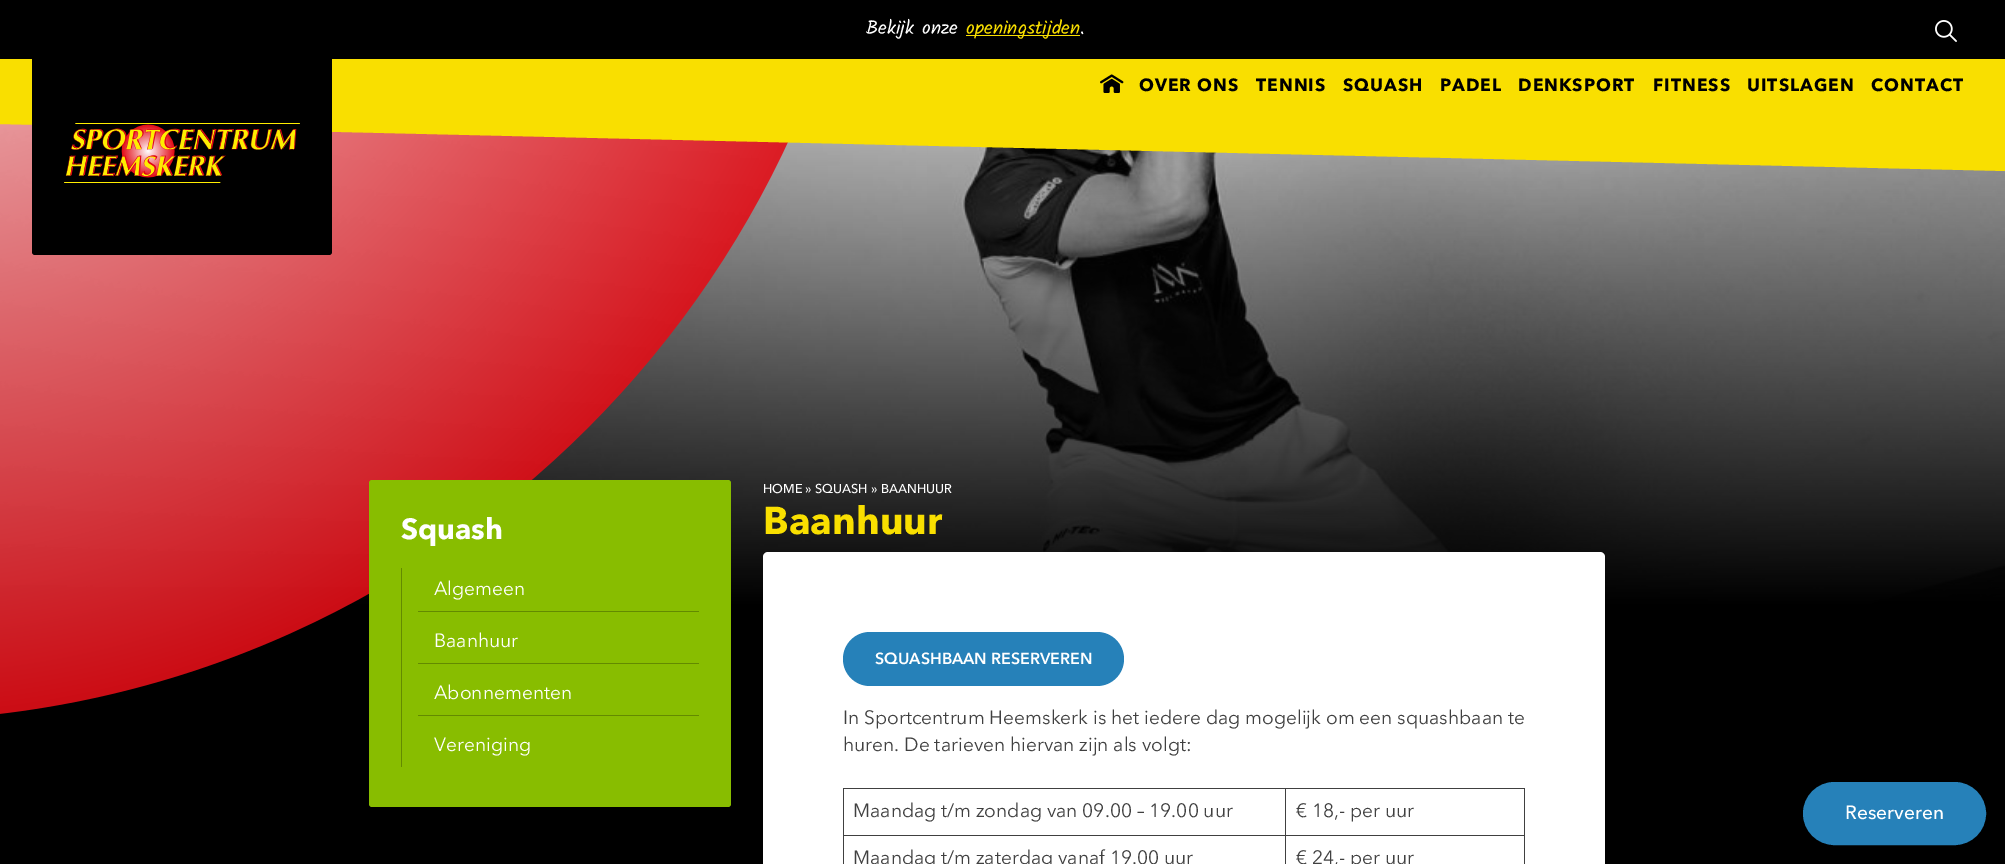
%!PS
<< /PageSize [2005 864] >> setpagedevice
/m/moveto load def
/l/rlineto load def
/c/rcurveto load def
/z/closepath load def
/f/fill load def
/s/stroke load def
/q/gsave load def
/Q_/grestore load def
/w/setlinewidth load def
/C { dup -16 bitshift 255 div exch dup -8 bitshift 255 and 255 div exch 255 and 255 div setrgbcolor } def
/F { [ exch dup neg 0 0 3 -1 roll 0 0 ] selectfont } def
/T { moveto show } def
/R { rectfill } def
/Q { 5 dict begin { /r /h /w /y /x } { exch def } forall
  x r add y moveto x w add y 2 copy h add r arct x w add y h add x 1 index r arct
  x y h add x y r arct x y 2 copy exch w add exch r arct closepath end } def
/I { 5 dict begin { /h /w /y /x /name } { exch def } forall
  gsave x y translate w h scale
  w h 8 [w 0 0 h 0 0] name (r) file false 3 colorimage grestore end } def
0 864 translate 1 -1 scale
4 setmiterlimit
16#FFFFFF C
0 0 2005 864 R
16#000000 C
0 0 2005 59 R
/Kalam-Regular 19.2 F
16#FFFFFF C
(Bekijk onze) 866 34 T
16#F9DF00 C
966 35 114 1 R
(openingstijden) 966 34 T
16#FFFFFF C
(.) 1080 34 T
(1.rgb) 1935 20 22 22 I
16#F9DF00 C
0 59 2005 57 R
(4.rgb) 0 124 2005 740 I
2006 171 m -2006 -47 l 0 -8 l 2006 0 l z f
16#000000 C
32 59 m 300 0 l 0 193 l 0 1.5 -1.5 3 -3 3 c -294 0 l -1.5 0 -3 -1.5 -3 -3 c z f
(2.rgb) 64 123 236 60 I
(3.rgb) 1100 74 24 19 I
/AvenirNext-Bold 17.5 F
1139 91 m 1 0 (OVER ONS) ashow
1256 91 m 1 0 (TENNIS) ashow
1343 91 m 1 0 (SQUASH) ashow
1440 91 m 1 0 (PADEL) ashow
1518 91 m 1 0 (DENKSPORT) ashow
1653 91 m 1 0 (FITNESS) ashow
1747 91 m 1 0 (UITSLAGEN) ashow
1871 91 m 1 0 (CONTACT) ashow
16#88BD00 C
369 480 362 327 3 Q f
/AvenirNext-Bold 29 F
16#FFFFFF C
(Squash) 401 539 T
16#638A00 C
401 568 1 199 R
418 611 281 1 R
/AvenirNext-Regular 19.2 F
16#FFFFFF C
(Algemeen) 434 595 T
16#638A00 C
418 663 281 1 R
16#FFFFFF C
(Baanhuur) 434 647 T
16#638A00 C
418 715 281 1 R
16#FFFFFF C
(Abonnementen) 434 699 T
(Vereniging) 434 751 T
/AvenirNext-Medium 12.75 F
(HOME » SQUASH » BAANHUUR) 763 493 T
/AvenirNext-Bold 38.5 F
16#F9DF00 C
(Baanhuur) 763 534 T
16#FFFFFF C
763 552 842 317 5 Q f
16#2681B9 C
843 632 281 54 27 Q f
/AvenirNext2-Bold 16 F
16#FFFFFF C
(SQUASHBAAN RESERVEREN) 875 664 T
/AvenirNext-Regular 19.2 F
16#404040 C
(In Sportcentrum Heemskerk is het iedere dag mogelijk om een squashbaan te) 843 724 T
(huren. De tarieven hiervan zijn als volgt:) 843 751 T
1285 788 240 1 R
1285 835 240 1 R
1285 835 1 29 R
843 835 443 1 R
1285 788 1 48 R
843 788 443 1 R
843 835 1 29 R
843 788 1 48 R
(Maandag t/m zondag van 09.00 – 19.00 uur) 853 817 T
1524 835 1 29 R
1524 788 1 48 R
(€ 18,- per uur) 1296 817 T
(Maandag t/m zaterdag vanaf 19.00 uur) 853 864 T
(€ 24,- per uur) 1296 864 T
16#2681B9 C
1804 783 181 61 30.5 Q q f Q_
2 w
s
/AvenirNext-Medium 19.2 F
16#FFFFFF C
(Reserveren) 1845 819 T
showpage
